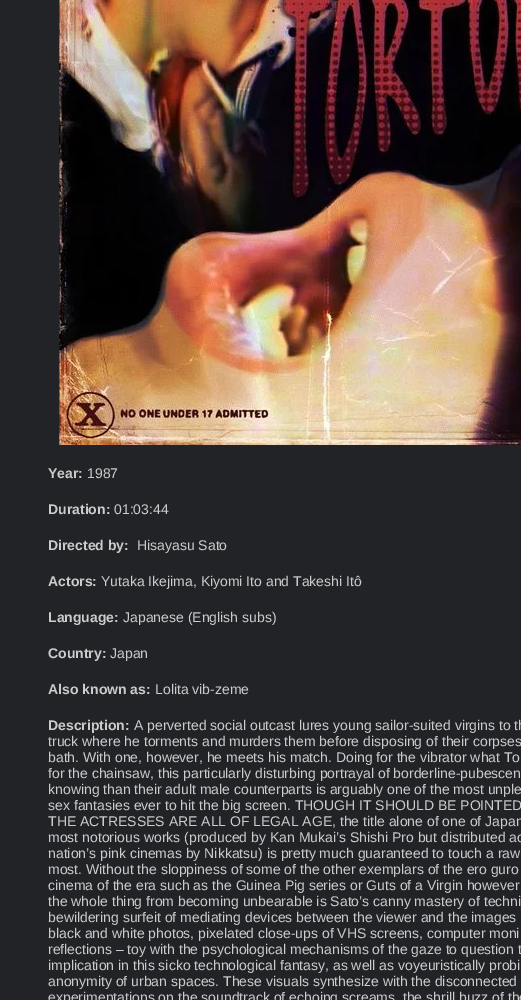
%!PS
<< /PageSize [521 1000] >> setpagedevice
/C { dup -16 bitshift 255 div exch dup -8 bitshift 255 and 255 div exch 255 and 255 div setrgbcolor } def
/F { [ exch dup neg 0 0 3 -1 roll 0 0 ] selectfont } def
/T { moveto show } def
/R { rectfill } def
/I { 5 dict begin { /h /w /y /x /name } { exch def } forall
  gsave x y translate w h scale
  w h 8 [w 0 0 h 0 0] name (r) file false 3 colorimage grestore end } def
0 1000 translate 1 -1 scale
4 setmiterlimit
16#222326 C
0 0 521 1000 R
(1.rgb) 59 0 462 445 I
/LiberationSans-Bold 14 F
16#CCCCCC C
(Year:) 48 478 T
/LiberationSans-Regular 14 F
(1987) 87 478 T
/LiberationSans-Bold 14 F
(Duration:) 48 514 T
/LiberationSans-Regular 14 F
(01:03:44) 114 514 T
/LiberationSans-Bold 14 F
(Directed by:) 48 550 T
/LiberationSans-Regular 14 F
(Hisayasu Sato) 137 550 T
/LiberationSans-Bold 14 F
(Actors:) 48 586 T
/LiberationSans-Regular 14 F
(Yutaka Ikejima, Kiyomi Ito and Takeshi Itô) 101 586 T
/LiberationSans-Bold 14 F
(Language:) 48 622 T
/LiberationSans-Regular 14 F
(Japanese \(English subs\)) 123 622 T
/LiberationSans-Bold 14 F
(Country:) 48 658 T
/LiberationSans-Regular 14 F
(Japan) 110 658 T
/LiberationSans-Bold 14 F
(Also known as:) 48 694 T
/LiberationSans-Regular 14 F
(Lolita vib-zeme) 155 694 T
/LiberationSans-Bold 14 F
(Description:) 48 730 T
/LiberationSans-Regular 14 F
(A perverted social outcast lures young sailor-suited virgins to th) 134 730 T
(truck where he torments and murders them before disposing of their corpses) 48 746 T
(bath. With one, however, he meets his match. Doing for the vibrator what To) 48 762 T
(for the chainsaw, this particularly disturbing portrayal of borderline-pubescen) 48 778 T
(knowing than their adult male counterparts is arguably one of the most unple) 48 794 T
(sex fantasies ever to hit the big screen. THOUGH IT SHOULD BE POINTED) 48 810 T
(THE ACTRESSES ARE ALL OF LEGAL AGE, the title alone of one of Japan) 48 826 T
(most notorious works \(produced by Kan Mukai’s Shishi Pro but distributed ac) 48 842 T
(nation’s pink cinemas by Nikkatsu\) is pretty much guaranteed to touch a raw) 48 858 T
(most. Without the sloppiness of some of the other exemplars of the ero guro) 48 874 T
(cinema of the era such as the Guinea Pig series or Guts of a Virgin however) 48 890 T
(the whole thing from becoming unbearable is Sato’s canny mastery of techni) 48 906 T
(bewildering surfeit of mediating devices between the viewer and the images) 48 922 T
(black and white photos, pixelated close-ups of VHS screens, computer moni) 48 938 T
(reflections – toy with the psychological mechanisms of the gaze to question t) 48 954 T
(implication in this sicko technological fantasy, as well as voyeuristically probi) 48 970 T
(anonymity of urban spaces. These visuals synthesize with the disconnected) 48 986 T
(experimentations on the soundtrack of echoing screams, the shrill buzz of the) 48 1002 T
showpage
